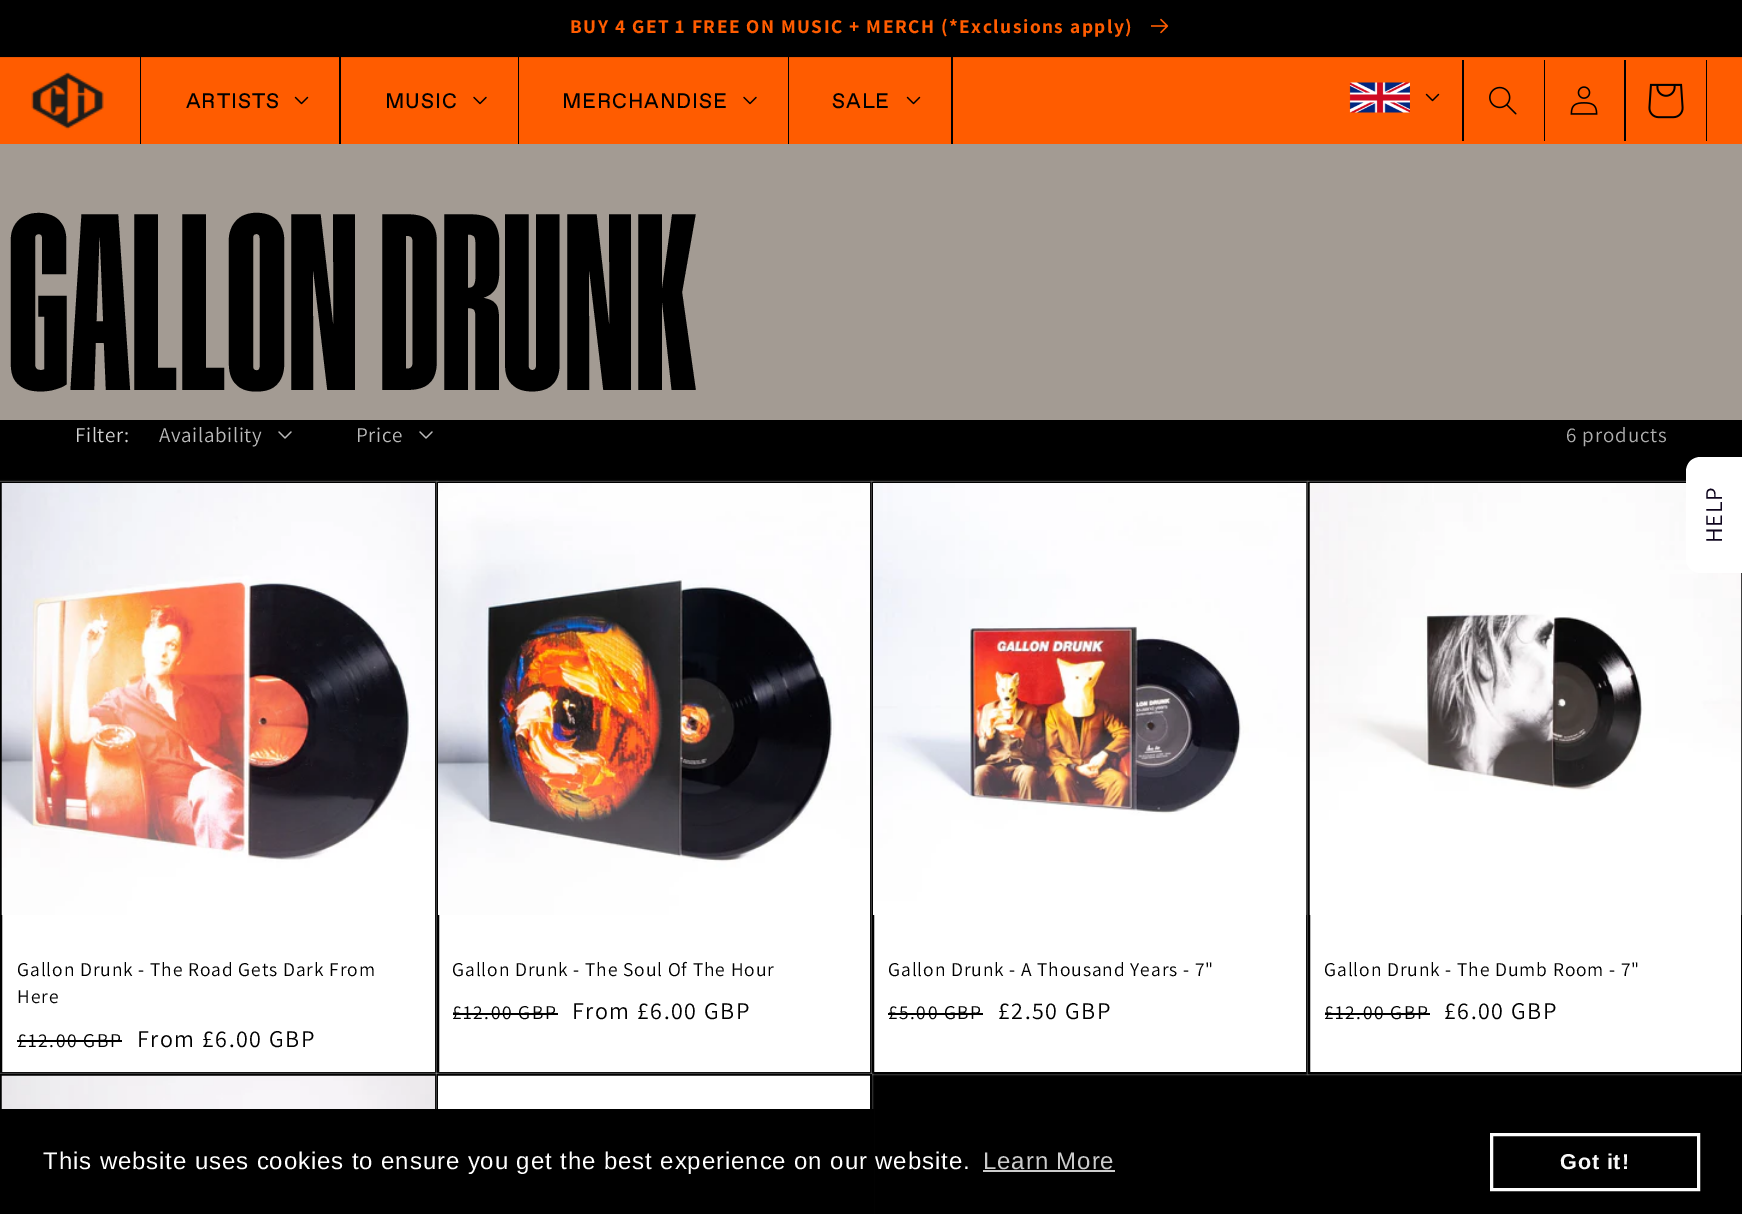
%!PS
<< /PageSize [1742 1214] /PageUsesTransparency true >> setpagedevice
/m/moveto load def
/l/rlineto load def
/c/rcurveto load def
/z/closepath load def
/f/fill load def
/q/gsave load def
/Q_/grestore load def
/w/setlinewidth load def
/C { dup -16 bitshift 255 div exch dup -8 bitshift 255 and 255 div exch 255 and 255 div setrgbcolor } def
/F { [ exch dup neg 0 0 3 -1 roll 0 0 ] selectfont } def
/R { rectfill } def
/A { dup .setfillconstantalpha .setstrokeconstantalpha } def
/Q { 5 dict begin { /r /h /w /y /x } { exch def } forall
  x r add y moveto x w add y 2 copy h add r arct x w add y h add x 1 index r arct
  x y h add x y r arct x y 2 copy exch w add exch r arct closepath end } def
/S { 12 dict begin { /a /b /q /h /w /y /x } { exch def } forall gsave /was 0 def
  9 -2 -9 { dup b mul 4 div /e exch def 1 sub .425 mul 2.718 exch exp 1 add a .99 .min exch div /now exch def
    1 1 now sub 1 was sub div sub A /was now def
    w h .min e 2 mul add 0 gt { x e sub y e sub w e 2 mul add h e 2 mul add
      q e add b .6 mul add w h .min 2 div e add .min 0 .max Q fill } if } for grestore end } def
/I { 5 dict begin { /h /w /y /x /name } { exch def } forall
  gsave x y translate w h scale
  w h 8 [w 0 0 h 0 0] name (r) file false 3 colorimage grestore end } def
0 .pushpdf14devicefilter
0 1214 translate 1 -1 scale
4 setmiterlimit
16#000000 C
0 0 1742 1214 R
/Assistant-Bold 19.5 F
16#FF5C00 C
570 33 m 1.5 0 (BUY 4 GET 1 FREE ON MUSIC + MERCH \(*Exclusions apply\)) ashow
(1.rgb) 1151 18 18 16 I
0 58 1742 86 R
16#EB5500 C
0 57 1742 1 R
(2.rgb) 31 72 73 58 I
16#000000 C
339 57 2 87 R
140 57 1 87 R
/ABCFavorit-Regular 21 F
186 108 m .9 0 (ARTISTS) ashow
(3.rgb) 294 96 15 9 I
518 57 1 87 R
385 108 m .9 0 (MUSIC) ashow
(4.rgb) 473 96 14 9 I
788 57 1 87 R
562 108 m .9 0 (MERCHANDISE) ashow
(4.rgb) 743 96 14 9 I
951 57 2 87 R
832 108 m .9 0 (SALE) ashow
(3.rgb) 906 96 15 9 I
1462 60 2 81 R
(5.rgb) 1349 82 61 31 I
(3.rgb) 1425 93 15 9 I
1544 60 1 81 R
(6.rgb) 1489 86 28 29 I
1624 60 2 81 R
(7.rgb) 1570 86 28 29 I
1706 60 1 81 R
(8.rgb) 1648 83 36 36 I
16#A39B93 C
0 144 1742 276 R
/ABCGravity-Black 251 F
16#000000 C
8 390 m .9 0 (GALLON DRUNK) ashow
/Assistant-Regular 21 F
16#D3D3D3 C
75 442 m .6 0 (Filter:) ashow
16#BABABA C
159 442 m .6 0 (Availability) ashow
(9.rgb) 278 431 14 8 I
356 442 m .6 0 (Price) ashow
(9.rgb) 419 431 14 8 I
16#AEAEAE C
1566 442 m .9 0 (6 products) ashow
16#F8F8F8 C
0 482 437 592 0 1 .75 S
16#FFFFFF C
2 915 433 157 R
16#000000 C
2 w
1 483 435 590 rectstroke
16#F8F8F8 C
437 482 435 592 0 1 .75 S
(10.rgb) 1 483 434 432 I
/Assistant-Regular 19.5 F
16#000000 C
17 976 m .9 0 (Gallon Drunk - The Road Gets Dark From) ashow
17 1003 m .9 0 (Here) ashow
17 1047 m 1.5 0 (£12.00 GBP) ashow
17 1040 105 2 R
/Assistant-Regular 24 F
137 1047 m 1.5 0 (From £6.00 GBP) ashow
16#FFFFFF C
439 915 431 157 R
16#000000 C
438 483 433 590 rectstroke
16#F8F8F8 C
872 482 436 592 0 1 .75 S
(11.rgb) 438 483 432 432 I
/Assistant-Regular 19.5 F
16#000000 C
452 976 m .9 0 (Gallon Drunk - The Soul Of The Hour) ashow
452 1019 m 1.5 0 (£12.00 GBP) ashow
453 1013 105 2 R
/Assistant-Regular 24 F
572 1019 m 1.5 0 (From £6.00 GBP) ashow
16#FFFFFF C
874 915 432 157 R
16#000000 C
873 483 434 590 rectstroke
16#F8F8F8 C
1308 482 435 592 0 1 .75 S
(12.rgb) 873 483 434 432 I
/Assistant-Regular 19.5 F
16#000000 C
888 976 m .9 0 (Gallon Drunk - A Thousand Years - 7") ashow
888 1019 m 1.5 0 (£5.00 GBP) ashow
888 1013 95 2 R
/Assistant-Regular 24 F
998 1019 m 1.5 0 (£2.50 GBP) ashow
16#FFFFFF C
1310 915 431 157 R
16#000000 C
1309 483 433 590 rectstroke
(13.rgb) 1309 483 433 432 I
/Assistant-Regular 19.5 F
1324 976 m .9 0 (Gallon Drunk - The Dumb Room - 7") ashow
1324 1019 m 1.5 0 (£12.00 GBP) ashow
1325 1013 105 2 R
/Assistant-Regular 24 F
1444 1019 m 1.5 0 (£6.00 GBP) ashow
16#F8F8F8 C
0 1074 437 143 0 1 .75 S
16#000000 C
1 1075 435 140 rectstroke
16#F8F8F8 C
437 1074 435 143 0 1 .75 S
(14.rgb) 1 1075 434 34 I
16#000000 C
438 1075 433 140 rectstroke
(15.rgb) 438 1075 432 34 I
16#FFFFFF C
1686 558 m 0 -86 l 0 -9 6 -15 15 -15 c 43 0 l 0 116 l -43 0 l -9 0 -15 -6 -15 -15 c z f
16#0E041D C
q 1722 543 translate -90 rotate 0 0 m .9 0 (HELP) ashow Q_
16#000000 C
2 1109 872 105 R
/LiberationSans-Regular 24 F
16#FFFFFF C
43 1169 m .9 0 (This website uses cookies to ensure you get the best experience on our website.) ashow
16#CCCCCC C
983 1169 m .9 0 (Learn More) ashow
983 1170 132 2 R
16#FDFDFD C
3 w
1491.5 1134.5 207 55 rectstroke
/LiberationSans-Bold 21.5 F
16#F9F9F9 C
1560 1169 m .9 0 (Got it!) ashow
.poppdf14devicefilter showpage
